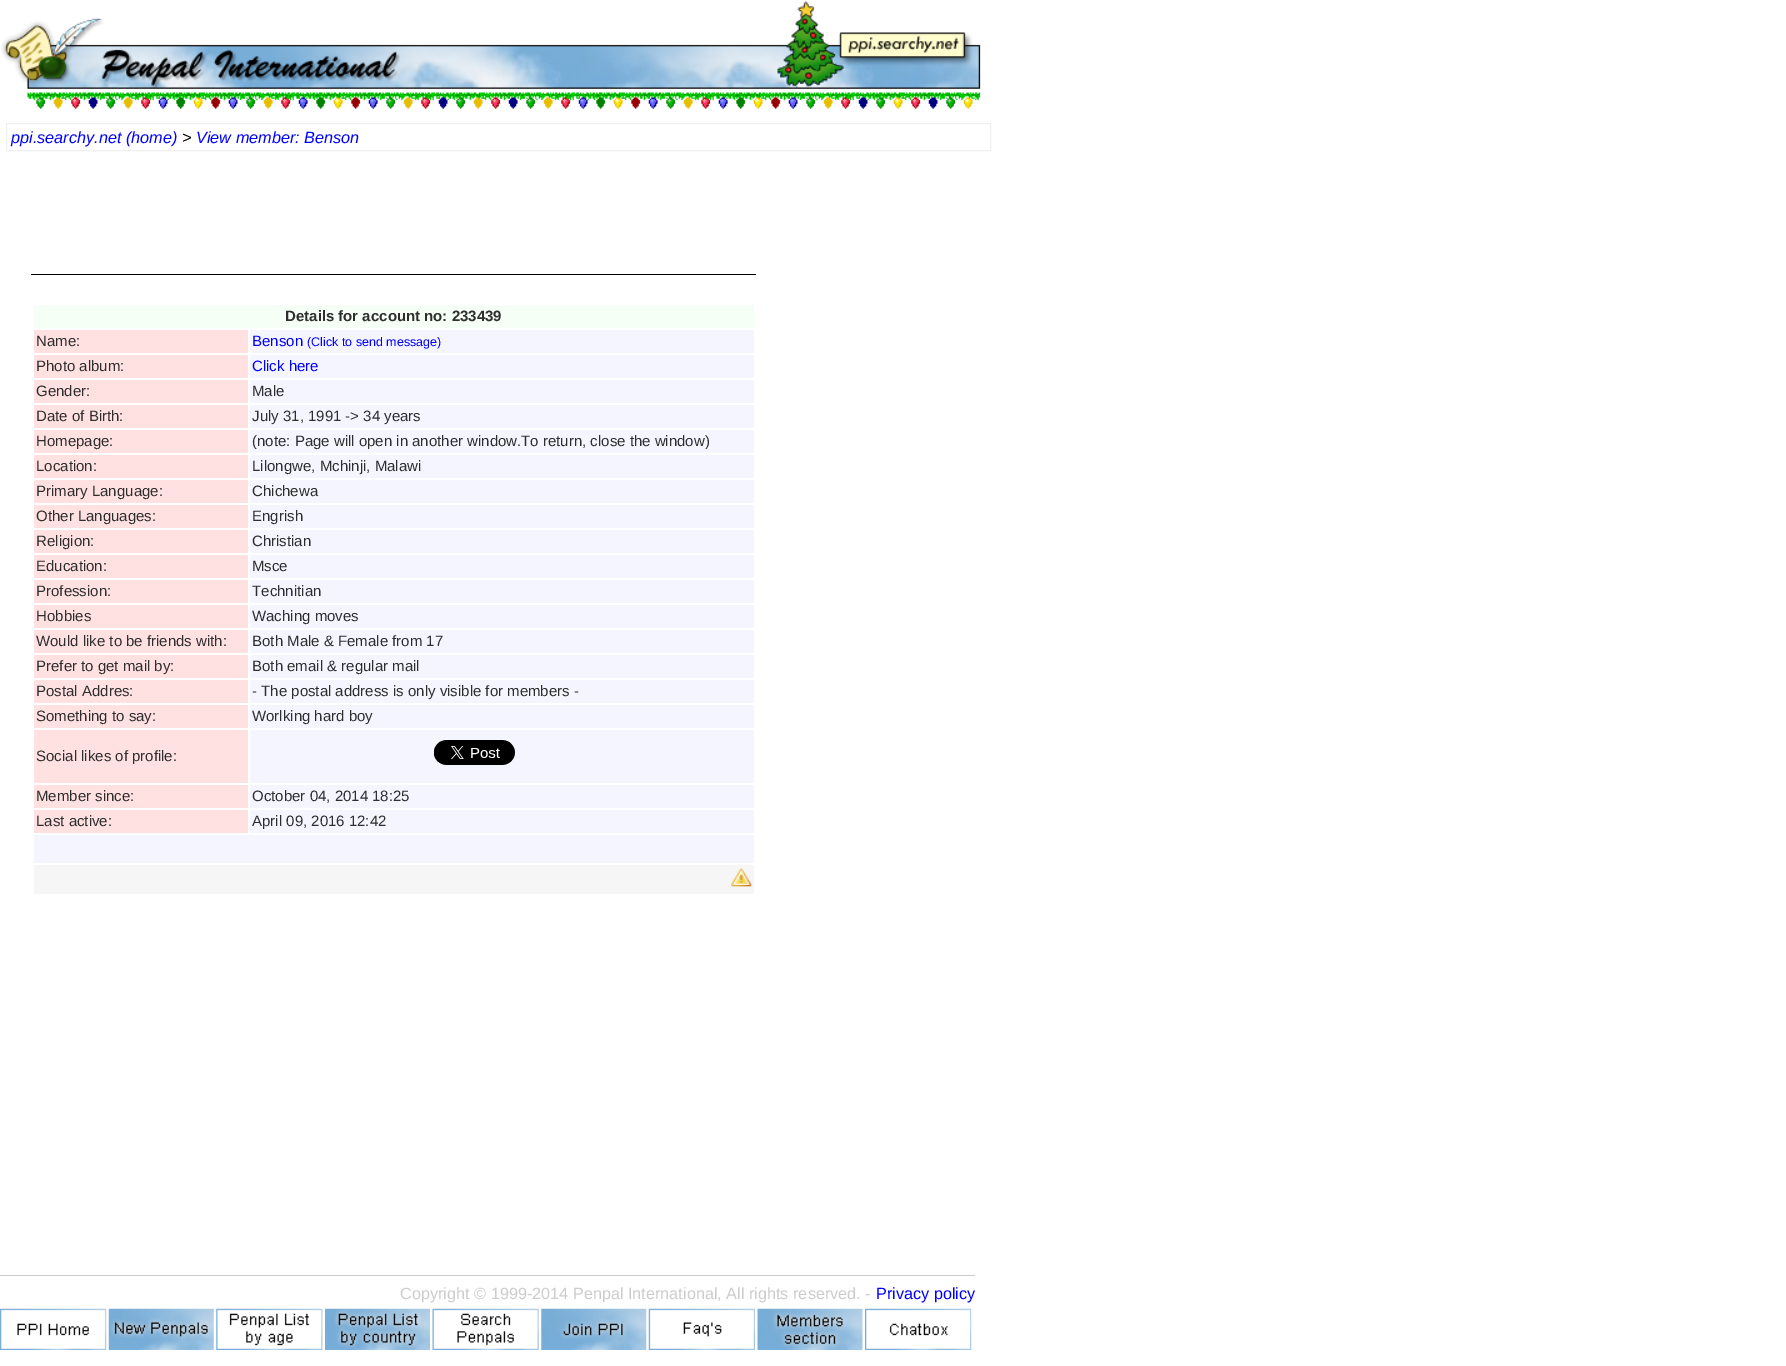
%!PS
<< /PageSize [1786 1366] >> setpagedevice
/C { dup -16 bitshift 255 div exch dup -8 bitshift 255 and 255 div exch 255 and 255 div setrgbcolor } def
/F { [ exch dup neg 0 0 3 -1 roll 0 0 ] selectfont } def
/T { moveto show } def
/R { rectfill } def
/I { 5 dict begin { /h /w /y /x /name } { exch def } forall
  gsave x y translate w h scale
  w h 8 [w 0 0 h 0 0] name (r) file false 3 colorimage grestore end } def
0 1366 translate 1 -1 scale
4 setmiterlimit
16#FFFFFF C
0 0 1786 1366 R
(1.rgb) 1 1 980 108 I
16#F0F0F0 C
6.5 123.5 984 27 rectstroke
/LiberationSans-Italic 16.25 F
16#0000FF C
(ppi.searchy.net \(home\)) 11 143 T
16#000000 C
(>) 182 143 T
16#0000FF C
(View member: Benson) 196 143 T
16#000000 C
31 274 725 1 R
16#F5FFF5 C
34 305 720 23 R
/LiberationSans-Bold 15 F
16#2E2E2E C
(Details for account no: 233439) 285 321 T
16#FFE1E1 C
34 330 214 23 R
/LiberationSans-Regular 15 F
16#2E2E2E C
(Name:) 36 346 T
16#F5F5FF C
250 330 504 23 R
16#0000FF C
(Benson) 252 346 T
/LiberationSans-Regular 12.5 F
(\(Click to send message\)) 307 346 T
16#FFE1E1 C
34 355 214 23 R
/LiberationSans-Regular 15 F
16#2E2E2E C
(Photo album:) 36 371 T
16#F5F5FF C
250 355 504 23 R
16#0000FF C
(Click here) 252 371 T
16#FFE1E1 C
34 380 214 23 R
16#2E2E2E C
(Gender:) 36 396 T
16#F5F5FF C
250 380 504 23 R
16#2E2E2E C
(Male) 252 396 T
16#FFE1E1 C
34 405 214 23 R
16#2E2E2E C
(Date of Birth:) 36 421 T
16#F5F5FF C
250 405 504 23 R
16#2E2E2E C
(July 31, 1991 -> 34 years) 252 421 T
16#FFE1E1 C
34 430 214 23 R
16#2E2E2E C
(Homepage:) 36 446 T
16#F5F5FF C
250 430 504 23 R
16#2E2E2E C
(\(note: Page will open in another window.To return, close the window\)) 252 446 T
16#FFE1E1 C
34 455 214 23 R
16#2E2E2E C
(Location:) 36 471 T
16#F5F5FF C
250 455 504 23 R
16#2E2E2E C
(Lilongwe, Mchinji, Malawi) 252 471 T
16#FFE1E1 C
34 480 214 23 R
16#2E2E2E C
(Primary Language:) 36 496 T
16#F5F5FF C
250 480 504 23 R
16#2E2E2E C
(Chichewa) 252 496 T
16#FFE1E1 C
34 505 214 23 R
16#2E2E2E C
(Other Languages:) 36 521 T
16#F5F5FF C
250 505 504 23 R
16#2E2E2E C
(Engrish) 252 521 T
16#FFE1E1 C
34 530 214 23 R
16#2E2E2E C
(Religion:) 36 546 T
16#F5F5FF C
250 530 504 23 R
16#2E2E2E C
(Christian) 252 546 T
16#FFE1E1 C
34 555 214 23 R
16#2E2E2E C
(Education:) 36 571 T
16#F5F5FF C
250 555 504 23 R
16#2E2E2E C
(Msce) 252 571 T
16#FFE1E1 C
34 580 214 23 R
16#2E2E2E C
(Profession:) 36 596 T
16#F5F5FF C
250 580 504 23 R
16#2E2E2E C
(Technitian) 252 596 T
16#FFE1E1 C
34 605 214 23 R
16#2E2E2E C
(Hobbies) 36 621 T
16#F5F5FF C
250 605 504 23 R
16#2E2E2E C
(Waching moves) 252 621 T
16#FFE1E1 C
34 630 214 23 R
16#2E2E2E C
(Would like to be friends with:) 36 646 T
16#F5F5FF C
250 630 504 23 R
16#2E2E2E C
(Both Male & Female from 17) 252 646 T
16#FFE1E1 C
34 655 214 23 R
16#2E2E2E C
(Prefer to get mail by:) 36 671 T
16#F5F5FF C
250 655 504 23 R
16#2E2E2E C
(Both email & regular mail) 252 671 T
16#FFE1E1 C
34 680 214 23 R
16#2E2E2E C
(Postal Addres:) 36 696 T
16#F5F5FF C
250 680 504 23 R
16#2E2E2E C
(- The postal address is only visible for members -) 252 696 T
16#FFE1E1 C
34 705 214 23 R
16#2E2E2E C
(Something to say:) 36 721 T
16#F5F5FF C
250 705 504 23 R
16#2E2E2E C
(Worlking hard boy) 252 721 T
16#FFE1E1 C
34 730 214 53 R
16#2E2E2E C
(Social likes of profile:) 36 761 T
16#F5F5FF C
250 730 504 53 R
(2.rgb) 434 740 81 25 I
16#FFE1E1 C
34 785 214 23 R
16#2E2E2E C
(Member since:) 36 801 T
16#F5F5FF C
250 785 504 23 R
16#2E2E2E C
(October 04, 2014 18:25) 252 801 T
16#FFE1E1 C
34 810 214 23 R
16#2E2E2E C
(Last active:) 36 826 T
16#F5F5FF C
250 810 504 23 R
16#2E2E2E C
(April 09, 2016 12:42) 252 826 T
16#F5F5FF C
34 835 720 28 R
16#F6F6F6 C
34 865 720 29 R
(3.rgb) 731 868 21 19 I
16#CCCCCC C
0 1275 975 1 R
/LiberationSans-Regular 16.25 F
(Copyright © 1999-2014 Penpal International, All rights reserved. -) 400 1299 T
16#0000FF C
(Privacy policy) 876 1299 T
(4.rgb) 0 1308 107 42 I
(5.rgb) 108 1308 106 42 I
(6.rgb) 216 1308 107 42 I
(7.rgb) 325 1308 105 42 I
(8.rgb) 432 1308 107 42 I
(9.rgb) 541 1308 106 42 I
(10.rgb) 648 1308 107 42 I
(11.rgb) 757 1308 106 42 I
(12.rgb) 865 1308 107 42 I
showpage
